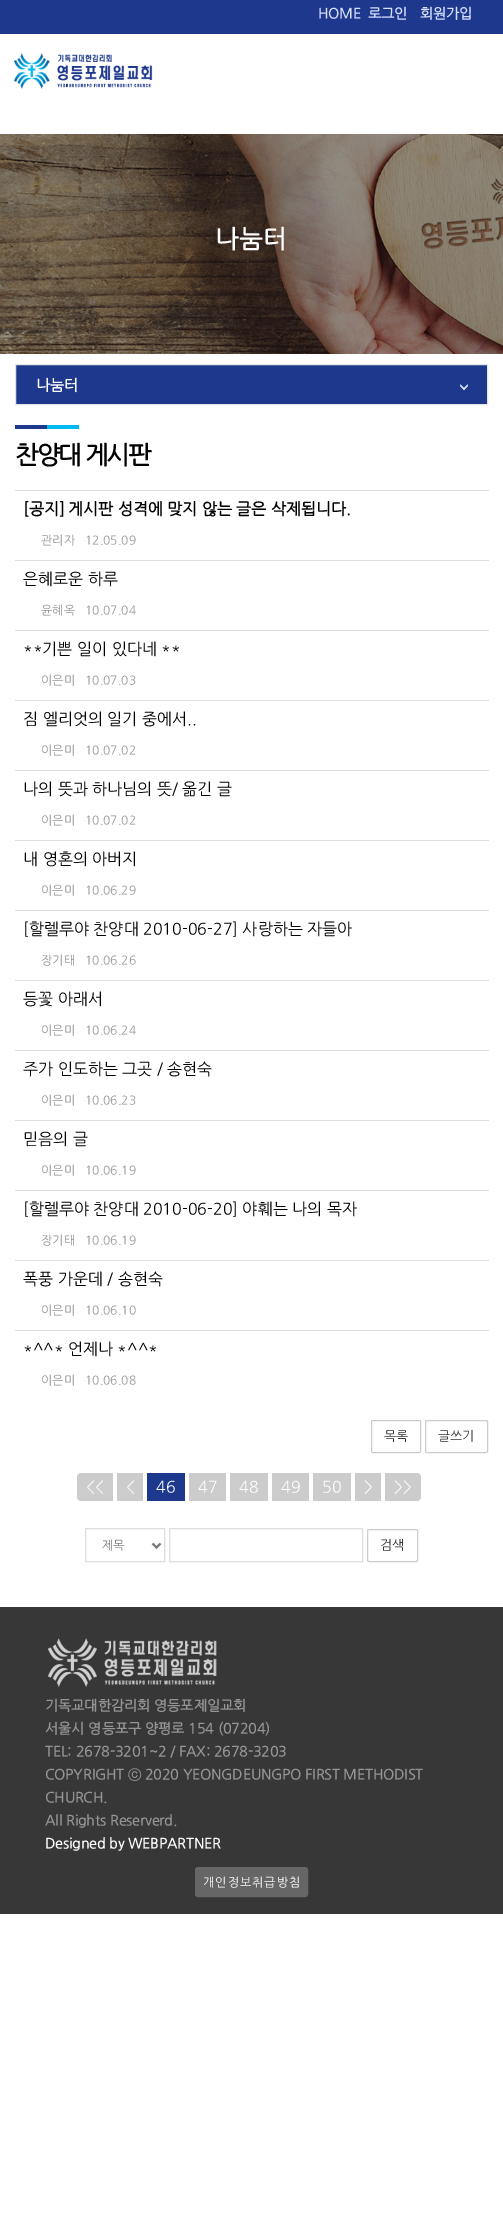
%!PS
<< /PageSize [503 2227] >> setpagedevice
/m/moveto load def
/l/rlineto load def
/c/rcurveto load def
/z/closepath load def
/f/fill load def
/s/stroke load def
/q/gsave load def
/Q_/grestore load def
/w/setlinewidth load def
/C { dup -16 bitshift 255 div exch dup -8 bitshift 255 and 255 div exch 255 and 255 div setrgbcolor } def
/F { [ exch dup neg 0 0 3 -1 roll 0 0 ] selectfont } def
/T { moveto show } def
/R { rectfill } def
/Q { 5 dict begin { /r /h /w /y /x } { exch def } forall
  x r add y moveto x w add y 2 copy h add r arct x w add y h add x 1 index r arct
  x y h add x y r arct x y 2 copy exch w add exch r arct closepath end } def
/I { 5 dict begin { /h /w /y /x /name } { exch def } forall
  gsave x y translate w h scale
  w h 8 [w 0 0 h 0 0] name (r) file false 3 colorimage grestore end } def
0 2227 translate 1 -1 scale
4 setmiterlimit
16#FFFFFF C
0 0 503 2227 R
16#1E388D C
0 0 503 34 R
/NanumGothic-Bold 14 F
16#D6DFFD C
(HOME) 318 18 T
(로그인) 368 18 T
(회원가입) 420 18 T
(1.rgb) 14 53 139 36 I
(2.rgb) 0 134 503 220 I
/NanumGothic-Bold 25 F
16#FFFFFF C
215 247 m .5 0 (나눔터) ashow
16#1E388D C
15.5 364.5 m 472 0 l 0 40 l -472 0 l z q f Q_
16#E5E5E5 C
s
/NanumGothic-Bold 15 F
16#FFFFFF C
(나눔터) 36 390 T
464 390 m -4 -4 l .5 -.5 l 4 4 l z f
464 390 m -.5 -.5 l 4 -4 l .5 .5 l z f
464 389 m -4 -4 l .5 -.5 l 4 4 l z f
464 389 m -.5 -.5 l 4 -4 l .5 .5 l z f
(3.rgb) 15 425 64 4 I
/NanumGothic-Bold 25 F
16#000000 C
15 463 m -2 0 (찬양대 게시판) ashow
16#DDDDDD C
15 490 474 1 R
/NanumGothic-Bold 16 F
16#000000 C
([공지]) 23 514 T
(게시판 성격에 맞지 않는 글은 삭제됩니다.) 68 514 T
/NanumGothic-Regular 12 F
16#959595 C
(관리자) 41 544 T
(12.05.09) 85 544 T
16#DDDDDD C
15 560 474 1 R
/NanumGothic-Regular 16 F
16#000000 C
(은혜로운 하루) 23 584 T
/NanumGothic-Regular 12 F
16#959595 C
(윤혜옥) 41 614 T
(10.07.04) 85 614 T
16#DDDDDD C
15 630 474 1 R
/NanumGothic-Regular 16 F
16#000000 C
(**기쁜 일이 있다네 **) 23 654 T
/NanumGothic-Regular 12 F
16#959595 C
(이은미) 41 684 T
(10.07.03) 85 684 T
16#DDDDDD C
15 700 474 1 R
/NanumGothic-Regular 16 F
16#000000 C
(짐 엘리엇의 일기 중에서..) 23 724 T
/NanumGothic-Regular 12 F
16#959595 C
(이은미) 41 754 T
(10.07.02) 85 754 T
16#DDDDDD C
15 770 474 1 R
/NanumGothic-Regular 16 F
16#000000 C
(나의 뜻과 하나님의 뜻/ 옮긴 글) 23 794 T
/NanumGothic-Regular 12 F
16#959595 C
(이은미) 41 824 T
(10.07.02) 85 824 T
16#DDDDDD C
15 840 474 1 R
/NanumGothic-Regular 16 F
16#000000 C
(내 영혼의 아버지) 23 864 T
/NanumGothic-Regular 12 F
16#959595 C
(이은미) 41 894 T
(10.06.29) 85 894 T
16#DDDDDD C
15 910 474 1 R
/NanumGothic-Regular 16 F
16#000000 C
([할렐루야 찬양대 2010-06-27] 사랑하는 자들아) 23 934 T
/NanumGothic-Regular 12 F
16#959595 C
(장기태) 41 964 T
(10.06.26) 85 964 T
16#DDDDDD C
15 980 474 1 R
/NanumGothic-Regular 16 F
16#000000 C
(등꽃 아래서) 23 1004 T
/NanumGothic-Regular 12 F
16#959595 C
(이은미) 41 1034 T
(10.06.24) 85 1034 T
16#DDDDDD C
15 1050 474 1 R
/NanumGothic-Regular 16 F
16#000000 C
(주가 인도하는 그곳 / 송현숙) 23 1074 T
/NanumGothic-Regular 12 F
16#959595 C
(이은미) 41 1104 T
(10.06.23) 85 1104 T
16#DDDDDD C
15 1120 474 1 R
/NanumGothic-Regular 16 F
16#000000 C
(믿음의 글) 23 1144 T
/NanumGothic-Regular 12 F
16#959595 C
(이은미) 41 1174 T
(10.06.19) 85 1174 T
16#DDDDDD C
15 1190 474 1 R
/NanumGothic-Regular 16 F
16#000000 C
([할렐루야 찬양대 2010-06-20] 야훼는 나의 목자) 23 1214 T
/NanumGothic-Regular 12 F
16#959595 C
(장기태) 41 1244 T
(10.06.19) 85 1244 T
16#DDDDDD C
15 1260 474 1 R
/NanumGothic-Regular 16 F
16#000000 C
(폭풍 가운데 / 송현숙) 23 1284 T
/NanumGothic-Regular 12 F
16#959595 C
(이은미) 41 1314 T
(10.06.10) 85 1314 T
16#DDDDDD C
15 1330 474 1 R
/NanumGothic-Regular 16 F
16#000000 C
(*^^* 언제나 *^^*) 23 1354 T
/NanumGothic-Regular 12 F
16#959595 C
(이은미) 41 1384 T
(10.06.08) 85 1384 T
16#CCCCCC C
371.5 1420.5 49 32 1.5 Q s
/NanumGothic-Regular 13 F
16#333333 C
(목록) 384 1440 T
16#CCCCCC C
425.5 1420.5 62 32 1.5 Q s
16#333333 C
(글쓰기) 438 1440 T
16#CCCCCC C
81 1473 m 32 0 l 0 28 l -32 0 l -2 0 -4 -2 -4 -4 c 0 -20 l 0 -2 2 -4 4 -4 c z f
/NanumGothic-Regular 16 F
16#FFFFFF C
(<<) 86 1492 T
16#CCCCCC C
117 1473 26 28 R
16#FFFFFF C
(<) 126 1492 T
16#1E388D C
147 1473 38 28 R
16#FFFFFF C
(46) 156 1492 T
16#CCCCCC C
189 1473 37 28 R
16#FFFFFF C
(47) 198 1492 T
16#CCCCCC C
230 1473 38 28 R
16#FFFFFF C
(48) 239 1492 T
16#CCCCCC C
272 1473 37 28 R
16#FFFFFF C
(49) 281 1492 T
16#CCCCCC C
313 1473 38 28 R
16#FFFFFF C
(50) 322 1492 T
16#CCCCCC C
355 1473 26 28 R
16#FFFFFF C
(>) 364 1492 T
16#CCCCCC C
385 1473 m 32 0 l 2 0 4 2 4 4 c 0 20 l 0 2 -2 4 -4 4 c -32 0 l z f
16#FFFFFF C
(>>) 394 1492 T
16#DDDDDD C
85.5 1528.5 79 33 rectstroke
16#7A7A7A C
2 w
152.5 1543.5 m 4 4 l 4 -4 l s
/NanumGothic-Regular 12 F
(제목) 102 1549 T
16#DDDDDD C
1 w
169.5 1528.5 193 33 rectstroke
16#CCCCCC C
367.5 1529.5 50 32 1.5 Q s
/NanumGothic-Regular 13 F
16#333333 C
(검색) 380 1549 T
16#383737 C
0 1607 503 307 R
(4.rgb) 48 1638 169 49 I
/NanumGothic-Bold 14 F
16#959595 C
(기독교대한감리회 영등포제일교회) 45 1710 T
(서울시 영등포구 양평로 154 \(07204\)) 45 1733 T
(TEL: 2678-3201~2 / FAX: 2678-3203) 45 1756 T
(COPYRIGHT ⓒ 2020 YEONGDEUNGPO FIRST METHODIST) 45 1779 T
(CHURCH.) 45 1802 T
(All Rights Reserverd.) 45 1825 T
16#FFFFFF C
(Designed by WEBPARTNER) 45 1848 T
16#666666 C
196.5 1868.5 110 27 1.5 Q q f Q_
3 w
s
/NanumGothic-Regular 12 F
16#FFFFFF C
203 1886 m 1 0 (개인정보취급방침) ashow
showpage
